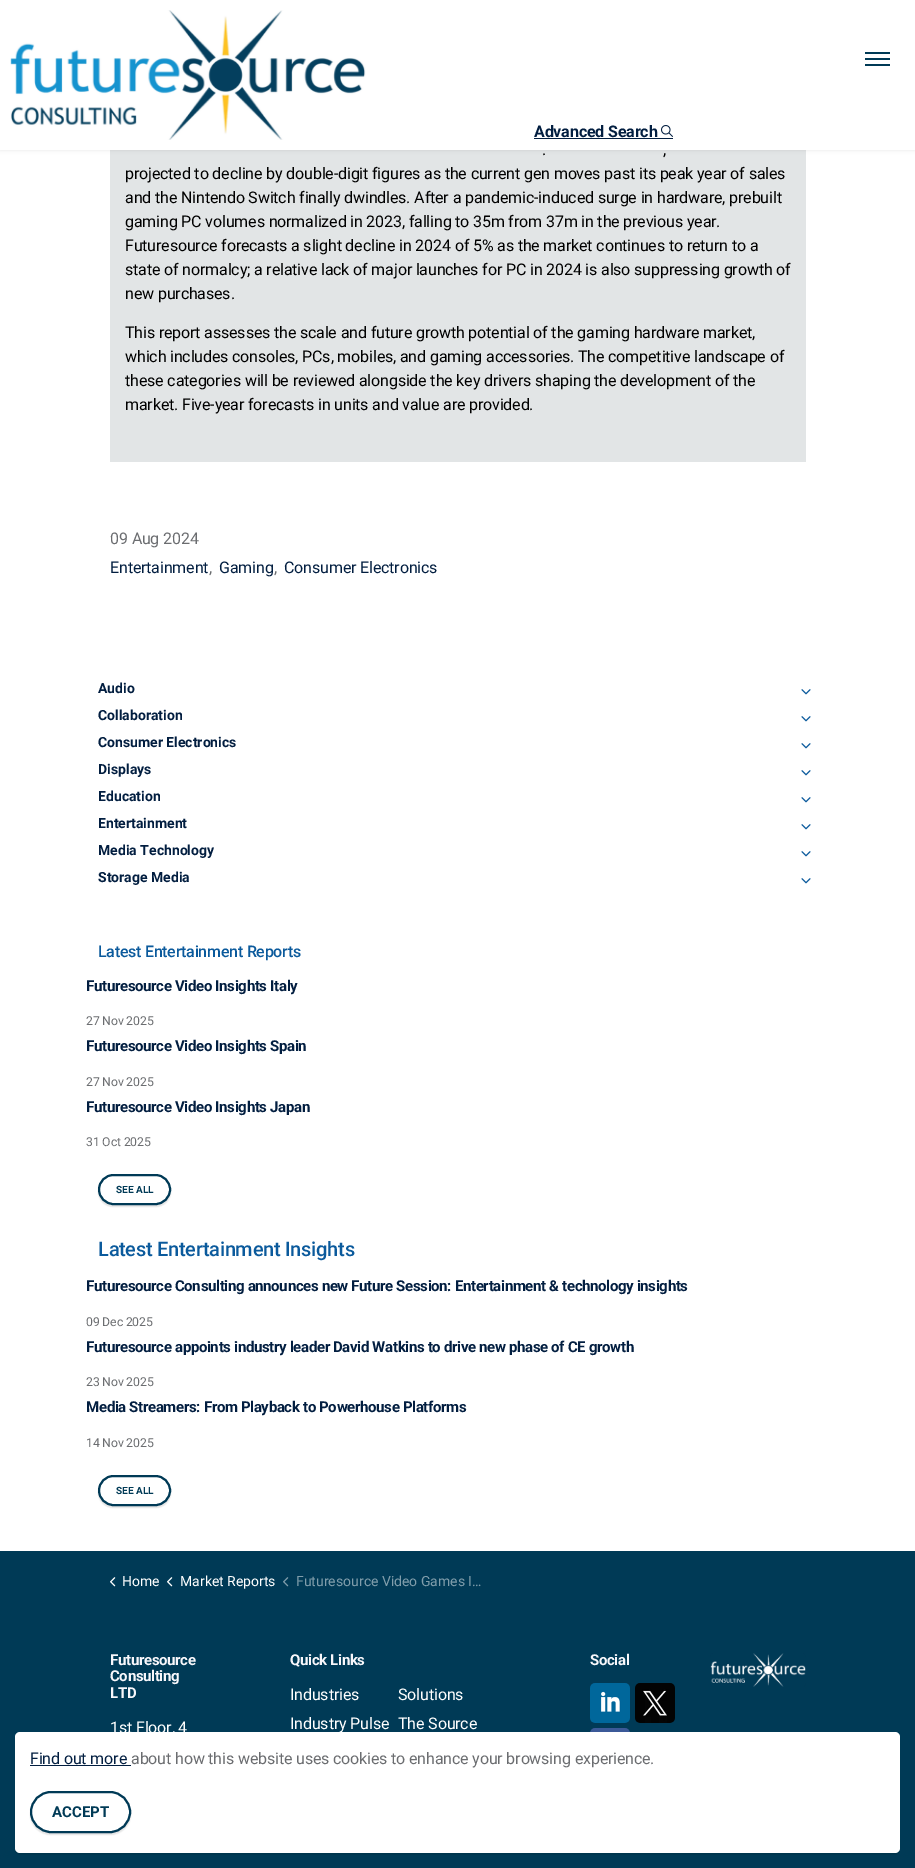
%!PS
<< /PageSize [915 1868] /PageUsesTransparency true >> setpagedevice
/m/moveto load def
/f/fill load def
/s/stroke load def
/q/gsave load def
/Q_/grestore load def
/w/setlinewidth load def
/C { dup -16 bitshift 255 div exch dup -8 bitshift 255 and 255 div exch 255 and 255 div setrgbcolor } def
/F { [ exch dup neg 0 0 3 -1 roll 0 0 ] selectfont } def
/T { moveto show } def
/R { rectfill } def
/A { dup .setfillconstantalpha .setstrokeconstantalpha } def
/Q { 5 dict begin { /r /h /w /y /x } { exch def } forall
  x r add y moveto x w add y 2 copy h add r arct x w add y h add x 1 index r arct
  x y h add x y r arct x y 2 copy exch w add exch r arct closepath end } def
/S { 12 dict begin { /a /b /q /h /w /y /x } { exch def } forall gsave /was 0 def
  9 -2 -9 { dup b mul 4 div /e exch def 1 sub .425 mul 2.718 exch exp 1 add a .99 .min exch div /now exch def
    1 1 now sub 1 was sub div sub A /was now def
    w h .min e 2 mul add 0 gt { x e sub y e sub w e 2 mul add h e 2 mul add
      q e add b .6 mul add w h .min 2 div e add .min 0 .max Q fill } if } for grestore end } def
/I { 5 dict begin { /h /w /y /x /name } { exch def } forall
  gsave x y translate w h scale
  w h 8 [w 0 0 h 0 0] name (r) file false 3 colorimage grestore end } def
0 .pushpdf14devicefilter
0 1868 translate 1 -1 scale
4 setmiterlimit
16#FFFFFF C
0 0 915 1868 R
16#E2E5E6 C
110 150 696 312 R
16#000000 C
0 0 915 150 0 2 .1 S
16#FFFFFF C
0 0 915 150 R
(1.rgb) 10 10 356 130 I
16#003A56 C
865 52 25 2 R
865 58 25 2 R
865 64 25 2 R
/Roboto-Bold 16 F
16#021E40 C
534 137 m -.15 0 (Advanced Search) ashow
534 138 139 1 R
(2.rgb) 661 125 12 12 I
/Roboto-Regular 16 F
16#000000 C
542 155 m -.15 0 (.) ashow
663 155 m -.15 0 (,) ashow
125 179 m -.15 0 (projected to decline by double-digit figures as the current gen moves past its peak year of sales) ashow
125 203 m -.15 0 (and the Nintendo Switch finally dwindles. After a pandemic-induced surge in hardware, prebuilt) ashow
125 227 m -.15 0 (gaming PC volumes normalized in 2023, falling to 35m from 37m in the previous year.) ashow
125 251 m -.15 0 (Futuresource forecasts a slight decline in 2024 of 5% as the market continues to return to a) ashow
125 275 m -.15 0 (state of normalcy; a relative lack of major launches for PC in 2024 is also suppressing growth of) ashow
125 299 m -.15 0 (new purchases.) ashow
125 338 m -.15 0 (This report assesses the scale and future growth potential of the gaming hardware market,) ashow
125 362 m -.15 0 (which includes consoles, PCs, mobiles, and gaming accessories. The competitive landscape of) ashow
125 386 m -.15 0 (these categories will be reviewed alongside the key drivers shaping the development of the) ashow
125 410 m -.15 0 (market. Five-year forecasts in units and value are provided.) ashow
16#6B6D70 C
110 544 m -.15 0 (09 Aug 2024) ashow
16#021E40 C
110 573 m -.15 0 (Entertainment) ashow
16#6B6D70 C
209 573 m -.15 0 (,) ashow
16#021E40 C
219 573 m -.15 0 (Gaming) ashow
16#6B6D70 C
274 573 m -.15 0 (,) ashow
16#021E40 C
284 573 m -.15 0 (Consumer Electronics) ashow
/Roboto-Bold 14 F
(Audio) 98 693 T
(3.rgb) 801 689 10 6 I
(Collaboration) 98 720 T
(3.rgb) 801 716 10 6 I
(Consumer Electronics) 98 747 T
(3.rgb) 801 743 10 6 I
(Displays) 98 774 T
(3.rgb) 801 770 10 6 I
(Education) 98 801 T
(3.rgb) 801 797 10 6 I
(Entertainment) 98 828 T
(3.rgb) 801 824 10 6 I
(Media Technology) 98 855 T
(3.rgb) 801 851 10 6 I
(Storage Media) 98 882 T
(3.rgb) 801 878 10 6 I
/Roboto-Medium 16 F
16#0B5A9C C
98 957 m -.25 0 (Latest Entertainment Reports) ashow
/Roboto-Bold 15 F
16#021E40 C
86 991 m -.35 0 (Futuresource Video Insights Italy) ashow
/Roboto-Regular 12.25 F
16#6B6D70 C
86 1025 m -.15 0 (27 Nov 2025) ashow
/Roboto-Bold 15 F
16#021E40 C
86 1051 m -.35 0 (Futuresource Video Insights Spain) ashow
/Roboto-Regular 12.25 F
16#6B6D70 C
86 1086 m -.15 0 (27 Nov 2025) ashow
/Roboto-Bold 15 F
16#021E40 C
86 1112 m -.35 0 (Futuresource Video Insights Japan) ashow
/Roboto-Regular 12.25 F
16#6B6D70 C
86 1146 m -.15 0 (31 Oct 2025) ashow
16#000000 C
98 1176 73 31 15.5 .5 .1 S
16#FFFFFF C
99 1175 71 29 14.5 Q q f Q_
16#003A56 C
2 w
s
/Roboto-Bold 10 F
(SEE ALL) 116 1193 T
/Roboto-Medium 20 F
16#0B5A9C C
98 1256 m -.25 0 (Latest Entertainment Insights) ashow
/Roboto-Bold 15 F
16#021E40 C
86 1291 m -.35 0 (Futuresource Consulting announces new Future Session: Entertainment & technology insights) ashow
/Roboto-Regular 12.25 F
16#6B6D70 C
86 1326 m -.15 0 (09 Dec 2025) ashow
/Roboto-Bold 15 F
16#021E40 C
86 1352 m -.35 0 (Futuresource appoints industry leader David Watkins to drive new phase of CE growth) ashow
/Roboto-Regular 12.25 F
16#6B6D70 C
86 1386 m -.15 0 (23 Nov 2025) ashow
/Roboto-Bold 15 F
16#021E40 C
86 1412 m -.35 0 (Media Streamers: From Playback to Powerhouse Platforms) ashow
/Roboto-Regular 12.25 F
16#6B6D70 C
86 1447 m -.15 0 (14 Nov 2025) ashow
16#000000 C
98 1477 73 31 15.5 .5 .1 S
16#FFFFFF C
99 1476 71 29 14.5 Q q f Q_
16#003A56 C
s
/Roboto-Bold 10 F
(SEE ALL) 116 1494 T
0 1551 915 317 R
(4.rgb) 110 1577 6 10 I
/Roboto-Regular 14 F
16#FFFFFF C
(Home) 122 1586 T
(4.rgb) 167 1577 6 10 I
(Market Reports) 180 1586 T
(5.rgb) 283 1577 6 10 I
16#809DAB C
(Futuresource Video Games I…) 296 1586 T
/Roboto-Bold 15 F
16#F8F7FB C
110 1665 m -.35 0 (Futuresource) ashow
110 1681 m -.35 0 (Consulting) ashow
110 1698 m -.35 0 (LTD) ashow
/Roboto-Regular 16 F
16#FFFFFF C
110 1733 m -.15 0 (1st Floor, 4) ashow
/Roboto-Bold 15 F
16#F8F7FB C
290 1665 m -.35 0 (Quick Links) ashow
/Roboto-Regular 16 F
16#FFFFFF C
290 1700 m -.15 0 (Industries) ashow
398 1700 m -.15 0 (Solutions) ashow
290 1729 m -.15 0 (Industry Pulse) ashow
398 1729 m -.15 0 (The Source) ashow
/Roboto-Bold 15 F
16#F8F7FB C
590 1665 m -.35 0 (Social) ashow
(6.rgb) 590 1683 40 40 I
(7.rgb) 635 1683 40 40 I
(8.rgb) 590 1728 40 4 I
(9.rgb) 710 1653 96 34 I
16#000000 C
15 1734 885 121 5 .5 .1 S
16#FFFFFF C
15 1732 885 121 5 Q f
/Roboto-Regular 16 F
16#021E40 C
30 1764 m -.15 0 (Find out more) ashow
30 1765 101 1 R
16#6B6D70 C
131 1764 m -.15 0 (about how this website uses cookies to enhance your browsing experience.) ashow
16#000000 C
30 1793 101 42 21 .5 .1 S
16#FFFFFF C
31 1792 99 40 20 Q q f Q_
16#003A56 C
s
/Roboto-Bold 15 F
(ACCEPT) 52 1817 T
.poppdf14devicefilter showpage
